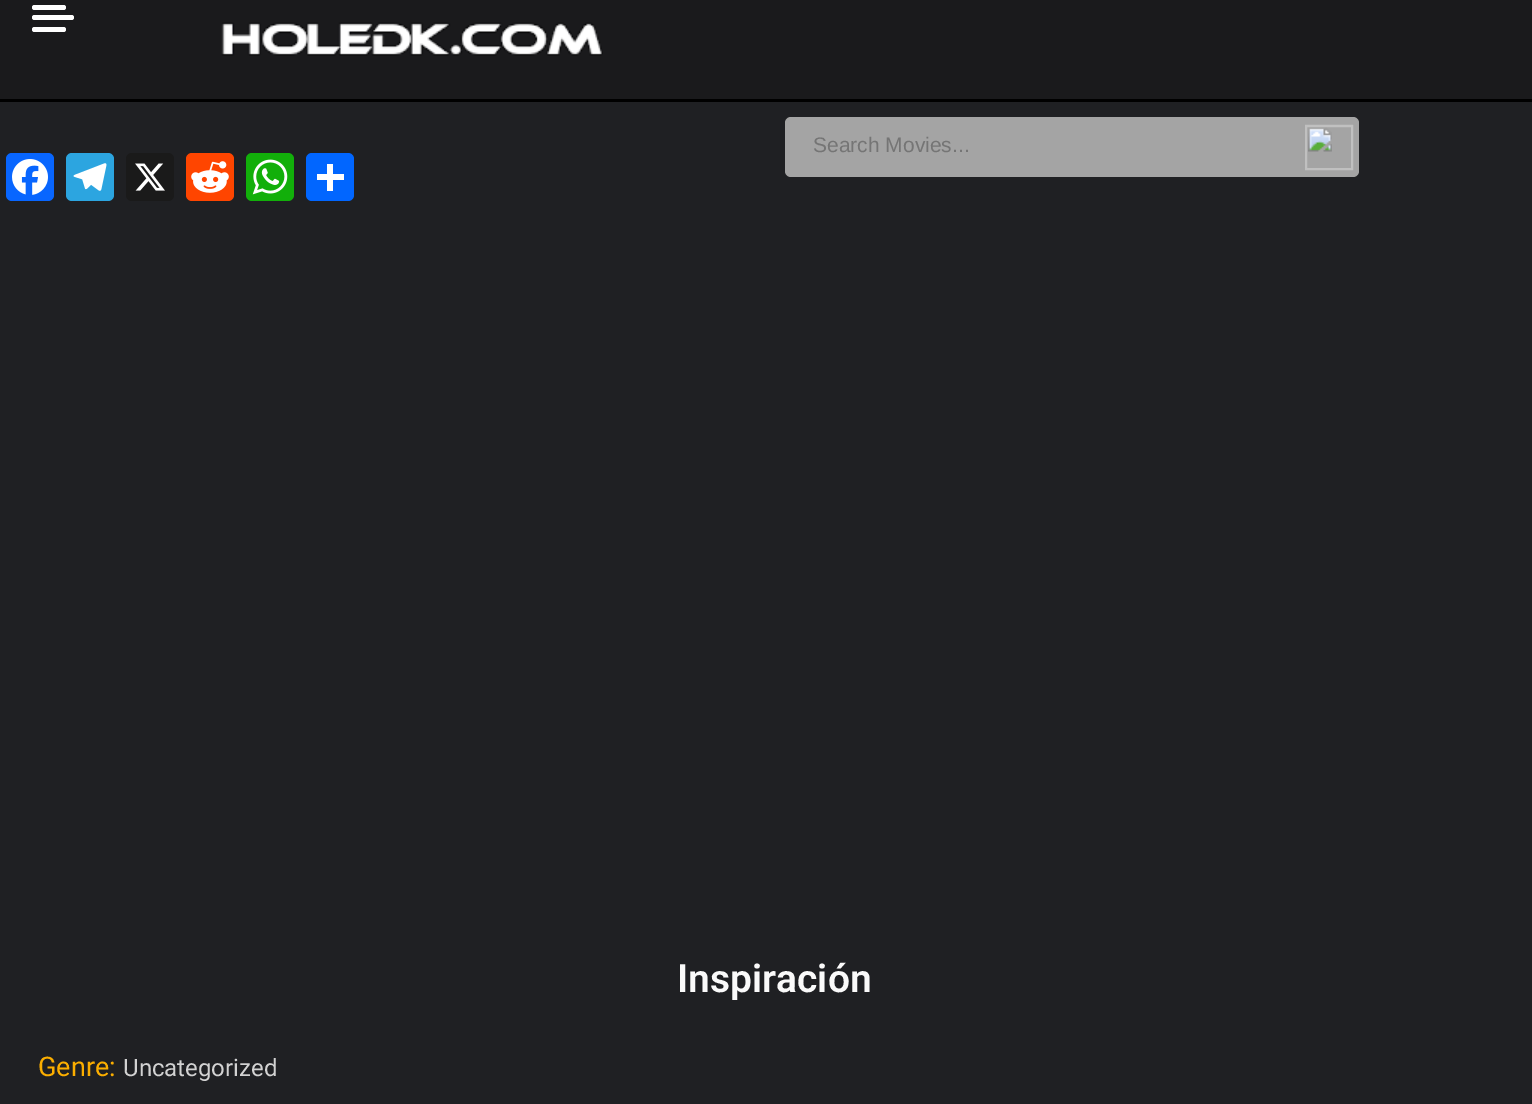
%!PS
<< /PageSize [1532 1104] >> setpagedevice
/f/fill load def
/w/setlinewidth load def
/C { dup -16 bitshift 255 div exch dup -8 bitshift 255 and 255 div exch 255 and 255 div setrgbcolor } def
/F { [ exch dup neg 0 0 3 -1 roll 0 0 ] selectfont } def
/T { moveto show } def
/R { rectfill } def
/Q { 5 dict begin { /r /h /w /y /x } { exch def } forall
  x r add y moveto x w add y 2 copy h add r arct x w add y h add x 1 index r arct
  x y h add x y r arct x y 2 copy exch w add exch r arct closepath end } def
/I { 5 dict begin { /h /w /y /x /name } { exch def } forall
  gsave x y translate w h scale
  w h 8 [w 0 0 h 0 0] name (r) file false 3 colorimage grestore end } def
0 1104 translate 1 -1 scale
4 setmiterlimit
16#1F2023 C
0 0 1532 1104 R
16#1A1A1C C
0 0 1532 99 R
16#000000 C
0 99 1532 3 R
16#FFFFFF C
32 15 42 5 2.5 Q f
32 5 34 5 2.5 Q f
32 27 34 5 2.5 Q f
(1.rgb) 221 22 382 34 I
16#A4A4A4 C
785 117 574 60 6 Q f
/LiberationSans-Regular 21 F
16#757575 C
(Search Movies...) 813 152 T
(2.rgb) 1305 124 48 28 I
16#C0C0C0 C
2 w
1306 126 46 43 rectstroke
16#0866FF C
6 153 48 48 6 Q f
(3.rgb) 12 159 36 36 I
16#2CA5E0 C
66 153 48 48 6 Q f
(4.rgb) 73 163 34 28 I
16#1A1A1A C
126 153 48 48 6 Q f
(5.rgb) 135 163 30 28 I
16#FF4500 C
186 153 48 48 6 Q f
(6.rgb) 191 161 38 32 I
16#12AF0A C
246 153 48 48 6 Q f
(7.rgb) 252 159 36 36 I
16#0166FF C
306 153 48 48 6 Q f
16#FFFFFF C
327 164 6 27 R
317 174 27 6 R
/Roboto-SemiBold 39 F
16#FAFAFA C
(Inspiración) 677 992 T
/Roboto-Regular 27 F
16#FBAE00 C
(Genre:) 38 1076 T
/Roboto-Regular 24 F
16#D2D2D2 C
(Uncategorized) 123 1076 T
showpage
